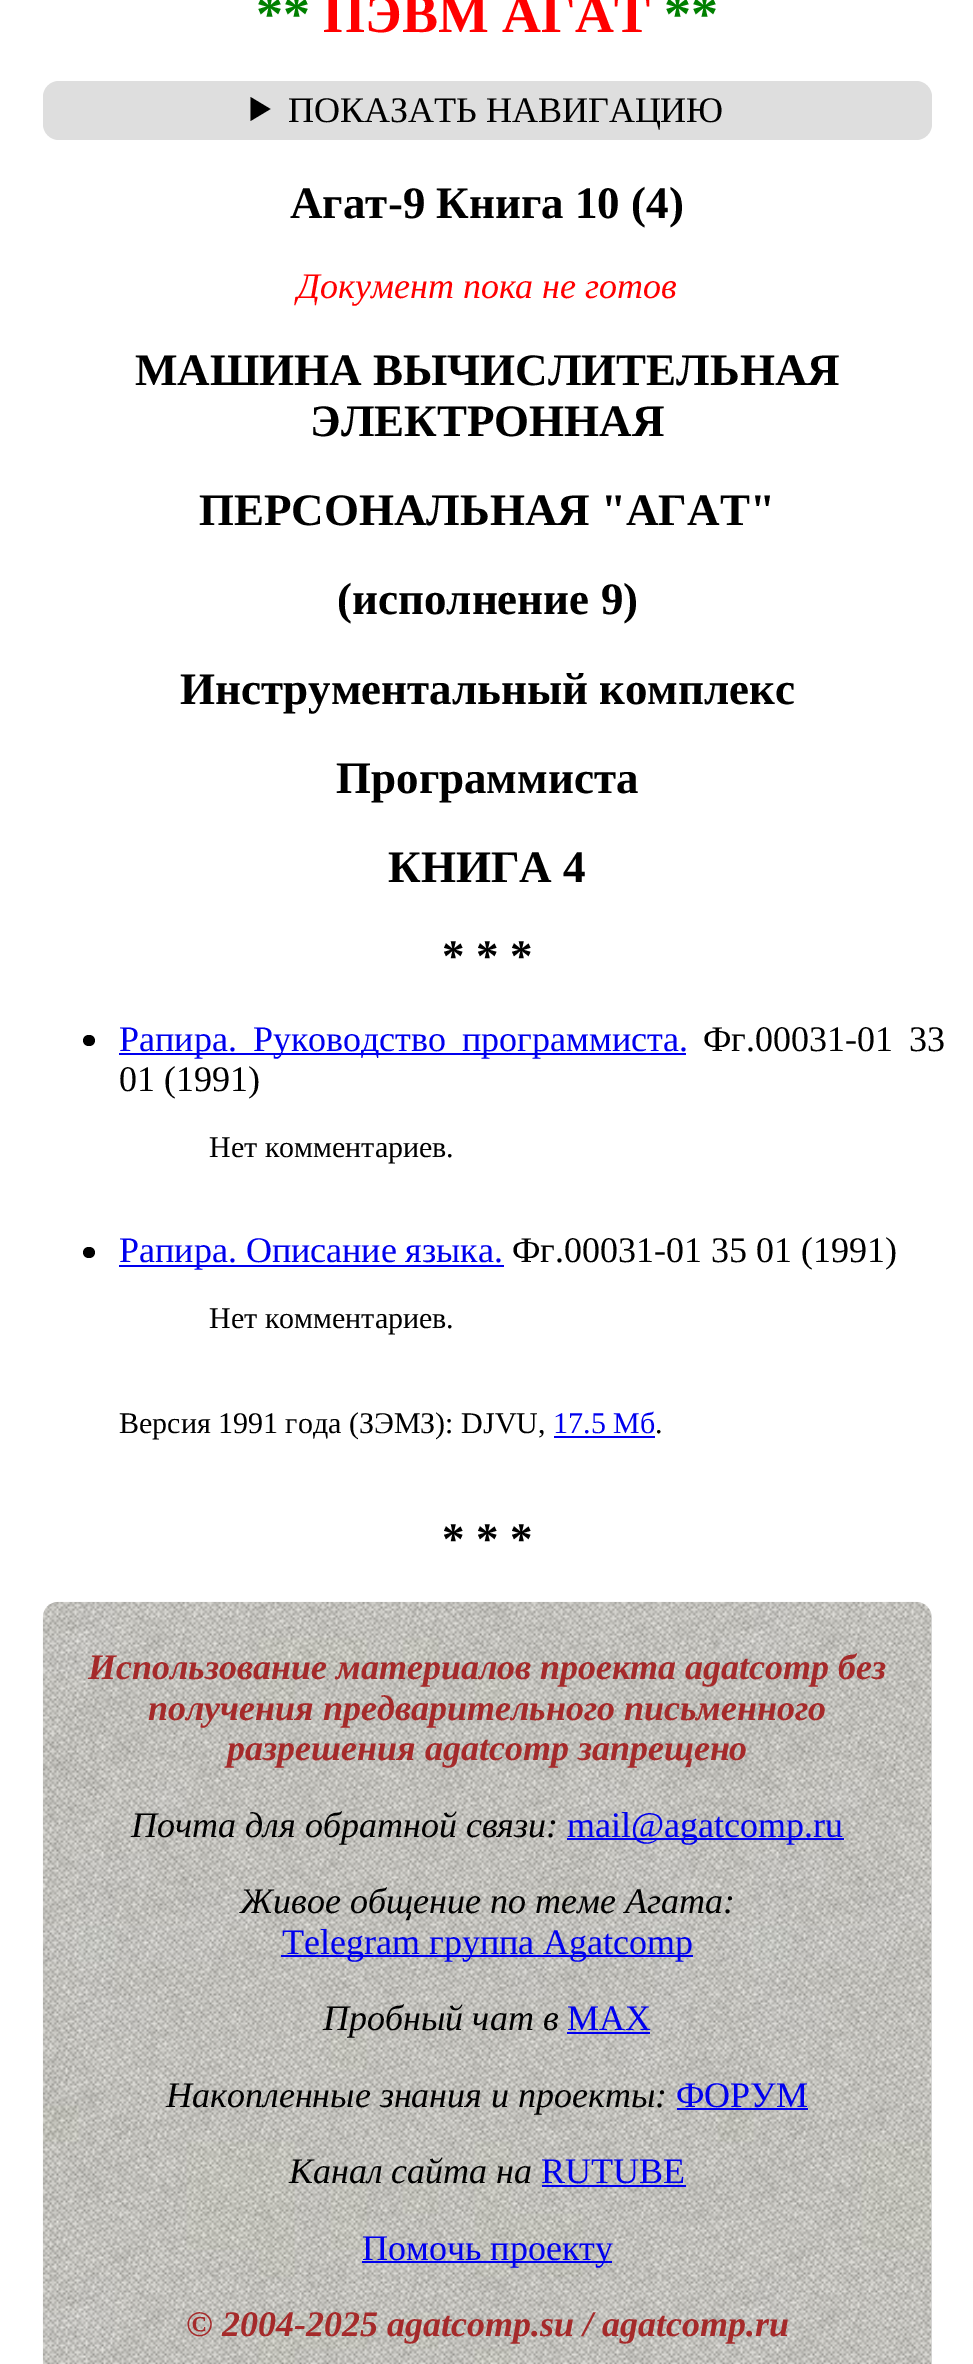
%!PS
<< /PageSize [973 2364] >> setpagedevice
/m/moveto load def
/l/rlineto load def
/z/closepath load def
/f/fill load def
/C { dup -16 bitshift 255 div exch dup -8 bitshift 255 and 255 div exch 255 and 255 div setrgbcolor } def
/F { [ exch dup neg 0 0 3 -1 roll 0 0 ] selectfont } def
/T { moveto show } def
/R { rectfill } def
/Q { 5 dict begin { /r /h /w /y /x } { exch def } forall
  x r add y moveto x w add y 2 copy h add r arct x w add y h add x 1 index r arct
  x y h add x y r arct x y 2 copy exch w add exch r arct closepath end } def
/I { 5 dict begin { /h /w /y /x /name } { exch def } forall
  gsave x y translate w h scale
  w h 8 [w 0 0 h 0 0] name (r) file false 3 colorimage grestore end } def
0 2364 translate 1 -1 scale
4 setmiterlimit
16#FFFFFF C
0 0 973 2364 R
/LiberationSerif-Bold 54 F
16#008000 C
(**) 256 32 T
16#FF0000 C
(ПЭВМ АГАТ) 323 32 T
16#008000 C
(**) 664 32 T
16#DEDEDE C
43 81 889 59 16 Q f
16#000000 C
250.5 97 m 20 12 l -20 12 l z f
/LiberationSerif-Regular 36 F
(ПОКАЗАТЬ НАВИГАЦИЮ) 288 122 T
/LiberationSerif-Bold 45 F
(Агат-9 Книга 10 \(4\)) 290 218 T
/LiberationSerif-Italic 36 F
16#FF0000 C
(Документ пока не готов) 297 298 T
/LiberationSerif-Bold 45 F
16#000000 C
(МАШИНА ВЫЧИСЛИТЕЛЬНАЯ) 135 385 T
(ЭЛЕКТРОННАЯ) 310 436 T
(ПЕРСОНАЛЬНАЯ "АГАТ") 199 525 T
(\(исполнение 9\)) 337 614 T
(Инструментальный комплекс) 180 704 T
(Программиста) 336 793 T
(КНИГА 4) 388 882 T
(* * *) 442 971 T
83 1035 12 11 5.5 Q f
16#0000EE C
119 1053 567 2 R
/LiberationSerif-Regular 36 F
119 1051 m 7 0 32 (Рапира. Руководство программиста.) widthshow
16#000000 C
703 1051 m 7 0 32 (Фг.00031-01 33) widthshow
(01 \(1991\)) 119 1091 T
/LiberationSerif-Regular 30 F
(Нет комментариев.) 209 1157 T
83 1247 12 11 5.5 Q f
16#0000EE C
119 1265 385 2 R
/LiberationSerif-Regular 36 F
(Рапира. Описание языка.) 119 1262 T
16#000000 C
(Фг.00031-01 35 01 \(1991\)) 512 1262 T
/LiberationSerif-Regular 30 F
(Нет комментариев.) 209 1328 T
(Версия 1991 года \(ЗЭМЗ\): DJVU,) 119 1433 T
16#0000EE C
(17.5 Мб) 553 1433 T
554 1436 101 2 R
16#000000 C
(.) 655 1433 T
/LiberationSerif-Bold 45 F
(* * *) 442 1554 T
16#DDDDDD C
43 1602 889 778 16 Q f
(1.rgb) 42 1601 890 763 I
/LiberationSerif-BoldItalic 36 F
16#A52A2A C
(Использование материалов проекта agatcomp без) 88 1679 T
(получения предварительного письменного) 148 1720 T
(разрешения agatcomp запрещено) 227 1760 T
/LiberationSerif-Italic 36 F
16#000000 C
(Почта для обратной связи:) 131 1837 T
16#0000EE C
567 1838 277 2 R
/LiberationSerif-Regular 36 F
(mail@agatcomp.ru) 567 1837 T
/LiberationSerif-Italic 36 F
16#000000 C
(Живое общение по теме Агата:) 240 1913 T
16#0000EE C
281 1955 412 2 R
/LiberationSerif-Regular 36 F
(Telegram группа Agatcomp) 282 1954 T
/LiberationSerif-Italic 36 F
16#000000 C
(Пробный чат в) 323 2030 T
/LiberationSerif-Regular 36 F
16#0000EE C
(MAX) 567 2030 T
567 2032 83 2 R
/LiberationSerif-Italic 36 F
16#000000 C
(Накопленные знания и проекты:) 166 2107 T
/LiberationSerif-Regular 36 F
16#0000EE C
(ФОРУМ) 676 2107 T
677 2108 131 2 R
/LiberationSerif-Italic 36 F
16#000000 C
(Канал сайта на) 289 2183 T
/LiberationSerif-Regular 36 F
16#0000EE C
(RUTUBE) 541 2183 T
542 2185 144 2 R
362 2261 250 2 R
(Помочь проекту) 362 2260 T
/LiberationSerif-BoldItalic 36 F
16#A52A2A C
(© 2004-2025 agatcomp.su / agatcomp.ru) 186 2336 T
showpage
